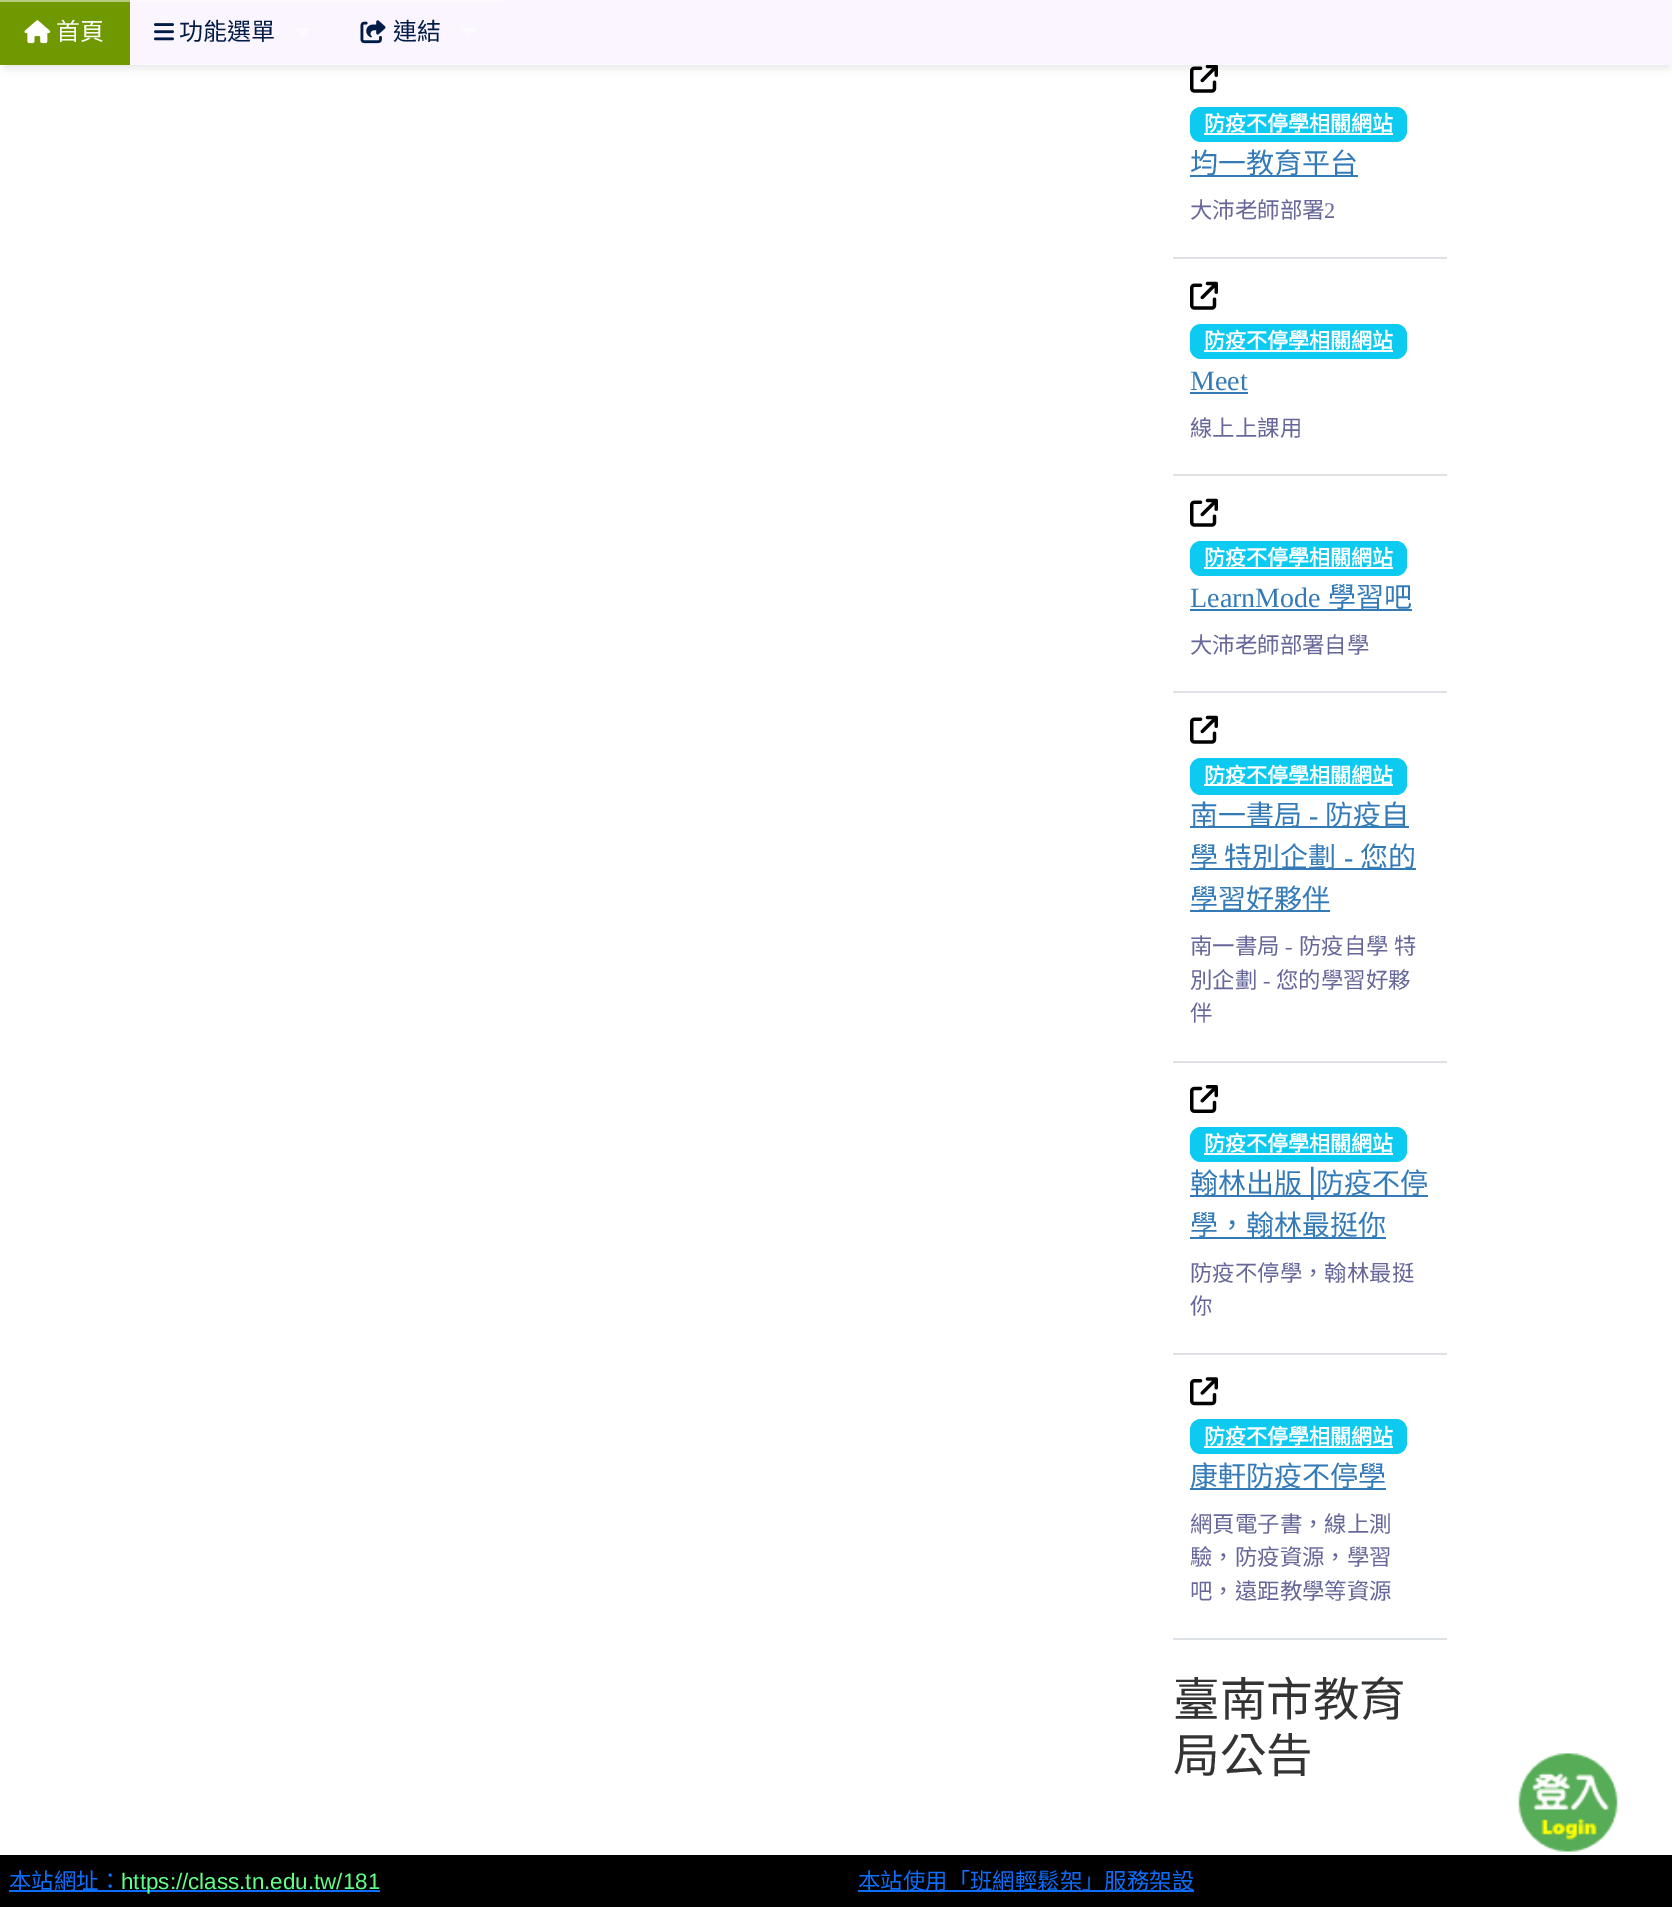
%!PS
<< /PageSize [1672 1907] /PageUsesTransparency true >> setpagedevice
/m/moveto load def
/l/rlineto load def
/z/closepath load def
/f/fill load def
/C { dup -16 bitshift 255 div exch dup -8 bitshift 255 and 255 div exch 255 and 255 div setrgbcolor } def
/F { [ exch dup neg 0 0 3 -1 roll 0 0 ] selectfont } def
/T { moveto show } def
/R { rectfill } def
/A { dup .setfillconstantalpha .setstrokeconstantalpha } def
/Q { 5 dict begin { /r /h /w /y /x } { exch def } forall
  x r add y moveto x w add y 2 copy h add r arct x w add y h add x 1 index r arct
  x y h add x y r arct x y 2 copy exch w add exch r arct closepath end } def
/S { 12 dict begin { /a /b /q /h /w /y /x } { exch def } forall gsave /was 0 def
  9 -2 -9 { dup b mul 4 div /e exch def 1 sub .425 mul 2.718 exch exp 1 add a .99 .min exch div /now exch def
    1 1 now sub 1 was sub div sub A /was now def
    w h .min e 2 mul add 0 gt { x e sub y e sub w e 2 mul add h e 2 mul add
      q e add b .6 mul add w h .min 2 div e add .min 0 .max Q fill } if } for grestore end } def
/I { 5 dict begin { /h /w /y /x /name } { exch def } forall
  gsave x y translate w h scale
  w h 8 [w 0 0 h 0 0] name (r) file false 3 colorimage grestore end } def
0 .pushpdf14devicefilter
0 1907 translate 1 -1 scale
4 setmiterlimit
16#FFFFFF C
0 0 1672 1907 R
(4.rgb) 1190 65 28 28 I
16#000000 C
5 14 1663 54 0 4.5 .1 S
16#FAF5FF C
130 0 1542 65 R
16#709800 C
0 2 130 63 R
16#B8CC80 C
0 0 130 2 R
(1.rgb) 24 20 27 24 I
/NotoSansCJKTC-Regular 24 F
16#FFFFFF C
(首頁) 56 40 T
16#FDFAFF C
130 0 372 2 R
(2.rgb) 154 23 20 18 I
16#001B45 C
(功能選單) 179 40 T
16#FDFAFF C
294 28 m 17.5 0 l -8.5 9 l z f
(3.rgb) 360 20 26 24 I
16#001B45 C
(連結) 393 40 T
16#FDFAFF C
460 28 m 18 0 l -9 9 l z f
16#DEE2E6 C
1173 257 274 2 R
16#0DCAF0 C
1190 107 217 35 11 Q f
/NotoSansCJKTC-Bold 21 F
16#FFFFFF C
(防疫不停學相關網站) 1204 131 T
1204 133 189 2 R
16#337AB7 C
1190 175 168 2 R
/NotoSansCJKTC-Regular 28 F
(均一教育平台) 1190 173 T
/NotoSansCJKTC-Regular 22.4 F
16#666699 C
(大沛老師部署) 1190 218 T
/LiberationSerif-Regular 22.4 F
(2) 1324 218 T
16#DEE2E6 C
1173 474 274 2 R
(5.rgb) 1190 281 28 29 I
16#0DCAF0 C
1190 324 217 35 11 Q f
/NotoSansCJKTC-Bold 21 F
16#FFFFFF C
(防疫不停學相關網站) 1204 348 T
1204 350 189 2 R
/LiberationSerif-Regular 28 F
16#337AB7 C
(Meet) 1190 390 T
1190 392 58 2 R
/NotoSansCJKTC-Regular 22.4 F
16#666699 C
(線上上課用) 1190 436 T
16#DEE2E6 C
1173 691 274 2 R
(5.rgb) 1190 498 28 29 I
16#0DCAF0 C
1190 541 217 35 11 Q f
/NotoSansCJKTC-Bold 21 F
16#FFFFFF C
(防疫不停學相關網站) 1204 565 T
1204 567 189 2 R
/LiberationSerif-Regular 28 F
16#337AB7 C
(LearnMode) 1190 607 T
1190 609 222 2 R
/NotoSansCJKTC-Regular 28 F
(學習吧) 1328 607 T
/NotoSansCJKTC-Regular 22.4 F
16#666699 C
(大沛老師部署自學) 1190 653 T
16#DEE2E6 C
1173 1061 274 2 R
(5.rgb) 1190 715 28 29 I
16#0DCAF0 C
1190 758 217 37 11 Q f
16#FFFFFF C
1204 784 189 2 R
/NotoSansCJKTC-Bold 21 F
(防疫不停學相關網站) 1204 783 T
16#337AB7 C
1190 826 219 2 R
/NotoSansCJKTC-Regular 28 F
(南一書局) 1190 825 T
/LiberationSerif-Regular 28 F
(-) 1309 825 T
/NotoSansCJKTC-Regular 28 F
(防疫自) 1325 825 T
1190 868 226 2 R
(學 特別企劃) 1190 867 T
/LiberationSerif-Regular 28 F
(-) 1344 867 T
/NotoSansCJKTC-Regular 28 F
(您的) 1360 867 T
1190 910 140 2 R
(學習好夥伴) 1190 909 T
/NotoSansCJKTC-Regular 22.4 F
16#666699 C
(南一書局) 1190 954 T
/LiberationSerif-Regular 22.4 F
(-) 1285 954 T
/NotoSansCJKTC-Regular 22.4 F
(防疫自學 特) 1299 954 T
(別企劃) 1190 988 T
/LiberationSerif-Regular 22.4 F
(-) 1263 988 T
/NotoSansCJKTC-Regular 22.4 F
(您的學習好夥) 1276 988 T
(伴) 1190 1021 T
16#DEE2E6 C
1173 1353 274 2 R
(6.rgb) 1190 1085 28 28 I
16#0DCAF0 C
1190 1127 217 35 11 Q f
/NotoSansCJKTC-Bold 21 F
16#FFFFFF C
(防疫不停學相關網站) 1204 1151 T
1204 1153 189 2 R
16#337AB7 C
1190 1195 238 2 R
/NotoSansCJKTC-Regular 28 F
(翰林出版) 1190 1193 T
/DejaVuSans-Regular 28 F
(⎥) 1302 1193 T
/NotoSansCJKTC-Regular 28 F
(防疫不停) 1316 1193 T
1190 1237 196 2 R
(學，翰林最挺你) 1190 1235 T
/NotoSansCJKTC-Regular 22.4 F
16#666699 C
(防疫不停學，翰林最挺) 1190 1281 T
(你) 1190 1314 T
16#DEE2E6 C
1173 1638 274 2 R
(7.rgb) 1190 1377 28 29 I
16#0DCAF0 C
1190 1419 217 35 11 Q f
/NotoSansCJKTC-Bold 21 F
16#FFFFFF C
(防疫不停學相關網站) 1204 1444 T
1204 1446 189 2 R
16#337AB7 C
1190 1488 196 2 R
/NotoSansCJKTC-Regular 28 F
(康軒防疫不停學) 1190 1486 T
/NotoSansCJKTC-Regular 22.4 F
16#666699 C
(網頁電子書，線上測) 1190 1532 T
(驗，防疫資源，學習) 1190 1565 T
(吧，遠距教學等資源) 1190 1599 T
/NotoSansCJKTC-Regular 46.5 F
16#333333 C
(臺南市教育) 1173 1716 T
(局公告) 1173 1772 T
(8.rgb) 1518 1753 100 99 I
16#000000 C
0 1855 1672 52 R
16#0D6EFD C
9 1890 371 2 R
/NotoSansCJKTC-Regular 22.4 F
(本站網址：) 9 1889 T
/LiberationSans-Regular 22.4 F
16#60FF88 C
(https://class.tn.edu.tw/181) 121 1889 T
16#0D6EFD C
858 1890 336 2 R
/NotoSansCJKTC-Regular 22.4 F
(本站使用「班網輕鬆架」服務架設) 858 1889 T
.poppdf14devicefilter showpage
